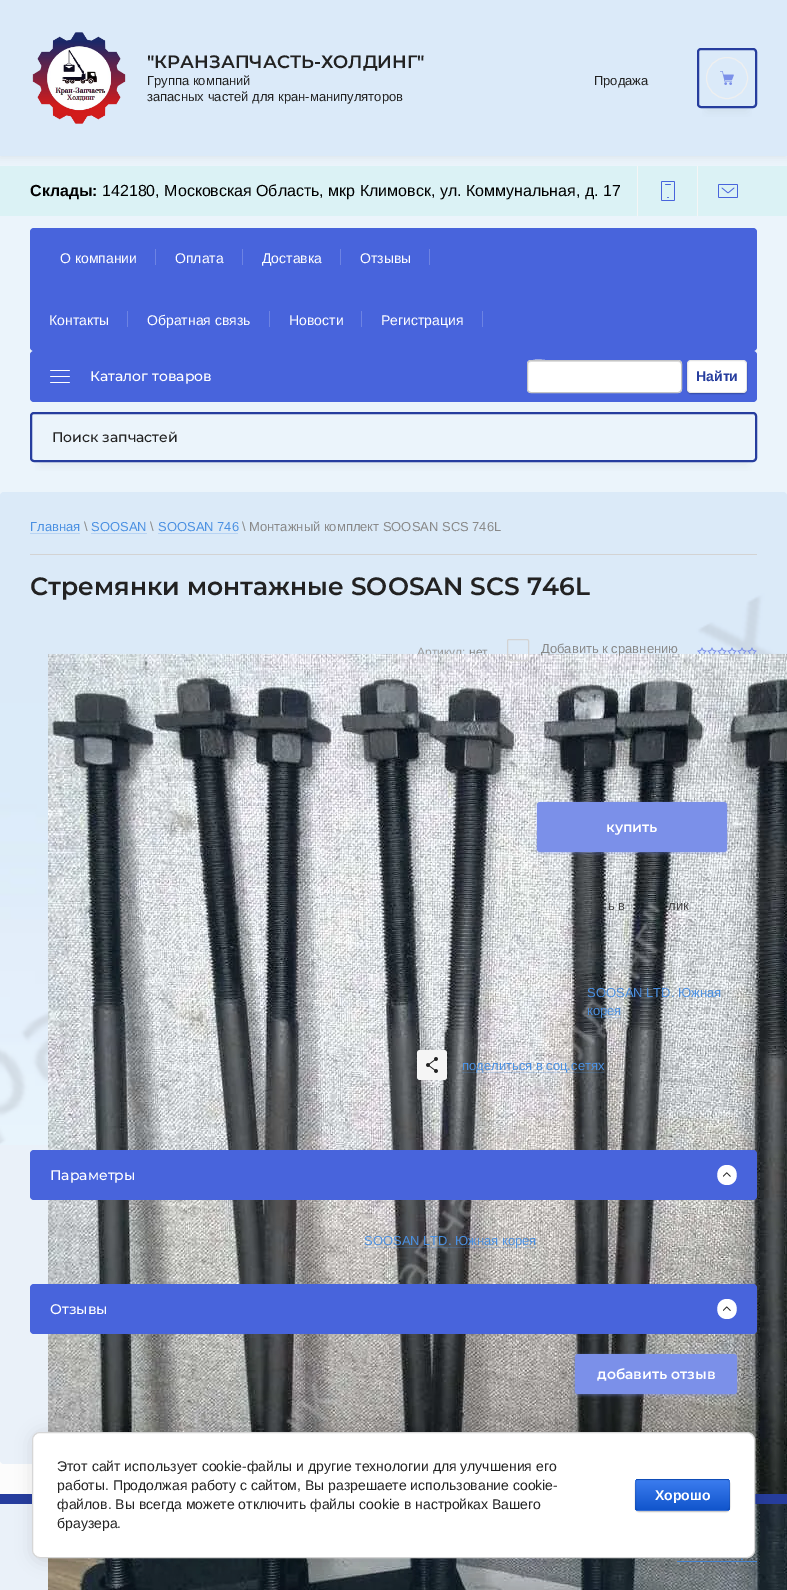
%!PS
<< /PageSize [787 1590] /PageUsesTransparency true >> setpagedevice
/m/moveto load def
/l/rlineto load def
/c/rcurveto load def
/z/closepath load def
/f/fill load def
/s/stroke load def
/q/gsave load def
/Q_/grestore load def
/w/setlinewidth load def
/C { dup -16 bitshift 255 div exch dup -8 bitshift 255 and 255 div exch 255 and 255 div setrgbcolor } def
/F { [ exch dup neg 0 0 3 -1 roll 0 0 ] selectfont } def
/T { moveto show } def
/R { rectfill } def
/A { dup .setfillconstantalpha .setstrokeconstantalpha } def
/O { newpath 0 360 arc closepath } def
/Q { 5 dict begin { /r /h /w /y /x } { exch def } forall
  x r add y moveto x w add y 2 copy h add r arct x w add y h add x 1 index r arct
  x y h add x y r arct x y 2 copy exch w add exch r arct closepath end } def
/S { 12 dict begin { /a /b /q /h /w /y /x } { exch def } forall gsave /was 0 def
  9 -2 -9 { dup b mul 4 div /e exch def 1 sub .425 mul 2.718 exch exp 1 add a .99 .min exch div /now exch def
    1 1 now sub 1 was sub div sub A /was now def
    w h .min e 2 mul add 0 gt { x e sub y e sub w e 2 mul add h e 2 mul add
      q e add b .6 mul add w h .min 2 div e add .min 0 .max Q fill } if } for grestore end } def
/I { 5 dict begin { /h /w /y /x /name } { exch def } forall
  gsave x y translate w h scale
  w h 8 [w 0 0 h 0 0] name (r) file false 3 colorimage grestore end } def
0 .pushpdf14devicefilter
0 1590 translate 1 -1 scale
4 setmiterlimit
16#FCFCFC C
0 0 787 1590 R
(1.rgb) 0 156 787 989 I
16#000000 C
0 2 787 156 0 4 .05 S
16#DBEAF9 C
0 0 787 156 R
(2.rgb) 32 32 94 92 I
/Montserrat-SemiBold 18 F
16#222222 C
("КРАНЗАПЧАСТЬ-ХОЛДИНГ") 147 68 T
/LiberationSans-Regular 13 F
(Группа компаний                                    Продажа) 147 85 T
(запасных частей для кран-манипуляторов) 147 101 T
q
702 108 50 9 rectclip
16#8A8A8A C
707 70 40 40 0 6 .16 S
Q_
16#263D9E C
2 w
698 49 58 58 3 Q s
(3.rgb) 720 71 14 14 I
16#EFEFEF C
1 w
727 78 20.5 O s
16#DBF2F5 C
0 166 787 50 R
/LiberationSans-Bold 16 F
16#000000 C
(Склады:) 30 196 T
/LiberationSans-Regular 16 F
(142180, Московская Область, мкр Климовск, ул. Коммунальная, д. 17) 102 196 T
(4.rgb) 661 181 14 20 I
16#F5F5F5 C
637 166 1 50 R
(5.rgb) 718 184 20 14 I
697 166 1 50 R
16#4864DC C
30 228 727 123 4 Q f
/LiberationSans-Regular 14 F
16#FFFFFF C
(О компании) 60 263 T
16#6D83E3 C
155 249 1 16 R
16#FFFFFF C
(Оплата) 175 263 T
16#6D83E3 C
242 249 1 16 R
16#FFFFFF C
(Доставка) 262 263 T
16#6D83E3 C
340 249 1 16 R
16#FFFFFF C
(Отзывы) 360 263 T
16#6D83E3 C
429 249 1 16 R
16#FFFFFF C
(Контакты) 49 325 T
16#6D83E3 C
127 311 1 16 R
16#FFFFFF C
(Обратная связь) 147 325 T
16#6D83E3 C
269 311 1 16 R
16#FFFFFF C
(Новости) 289 325 T
16#6D83E3 C
361 311 1 16 R
16#FFFFFF C
(Регистрация) 381 325 T
16#6D83E3 C
482 311 1 16 R
16#4864DC C
30 351 727 51 4 Q f
(6.rgb) 50 370 20 13 I
/Montserrat-Medium 14 F
16#FFFFFF C
(Каталог товаров) 90 381 T
527 360 155 33 4 Q f
16#E6E6E6 C
531 362 m 147 0 l 2 0 3 1 3 3 c 0 -2 0 -3 -2 -4 c -123 0 l -8 0 -28 -5 -28 4 c 0 -2 1 -3 3 -3 c z f
16#C5C5C5 C
527.5 360.5 154 32 3.5 Q s
16#000000 C
687 361 60 33 4 .5 .2 S
16#FFFFFF C
687 360 60 33 4 Q f
0.1 A
16#000000 C
687.5 360.5 59 32 3.5 Q s
/LiberationSans-Bold 14 F
1 A
16#263D9E C
(Найти) 696 381 T
q
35 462 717 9 rectclip
16#8A8A8A C
40 434 707 30 0 6 .16 S
Q_
2 w
31 413 725 48 3 Q s
/Montserrat-Medium 14 F
16#222222 C
(Поиск запчастей) 52 442 T
0.1 A
16#4A90E2 C
0 492 787 972 4 Q f
1 A
16#D3D3D3 C
30 554 727 1 R
/LiberationSans-Regular 13 F
16#4A90E2 C
(Главная) 30 531 T
16#B7D3F3 C
30 533 50 1 R
16#888888 C
(\\) 84 531 T
16#4A90E2 C
(SOOSAN) 91 531 T
16#B7D3F3 C
91 533 56 1 R
16#888888 C
(\\) 150 531 T
16#4A90E2 C
(SOOSAN 746) 158 531 T
16#B7D3F3 C
158 533 80 1 R
16#888888 C
(\\ Монтажный комплект SOOSAN SCS 746L) 242 531 T
/Montserrat-SemiBold 25 F
16#222222 C
(Стремянки монтажные SOOSAN SCS 746L) 30 595 T
/LiberationSans-Regular 12 F
16#999999 C
(Артикул:) 417 656 T
16#888888 C
(нет) 469 656 T
(9.rgb) 48 654 739 936 I
16#D3D3D3 C
1 w
507.5 639.5 21 21 1.5 Q s
/LiberationSans-Regular 13 F
16#888888 C
(Добавить к сравнению) 541 653 T
(7.rgb) 697 647 60 7 I
0.1 A
16#343434 C
460 826 8 2 R
1 A
16#7B90E9 C
537 803 190 50 3 1.5 .5 S
537 802 190 50 3 Q f
/Montserrat-SemiBold 14 F
16#FFFFFF C
(купить) 606 832 T
/LiberationSans-Regular 13 F
16#454545 C
(ь в) 608 910 T
(лик) 668 910 T
16#4A90E2 C
(SOOSAN LTD. Южная) 587 997 T
(корея) 587 1015 T
0.25 A
587 1017 34 1 R
1 A
16#F5F5F5 C
417 1050 30 30 3 Q f
(8.rgb) 426 1057 12 16 I
16#4A90E2 C
(поделиться в соц.сетях) 462 1070 T
0.25 A
462 1072 142 1 R
1 A
16#4864DC C
30 1150 727 50 4 Q f
/Montserrat-Medium 14 F
16#FFFFFF C
(Параметры) 50 1180 T
727 1185 m -13 0 -13 -20 0 -20 c 13 0 13 20 0 20 c z f
(10.rgb) 723 1172 8 5 I
/LiberationSans-Regular 13 F
16#4A90E2 C
(SOOSAN LTD. Южная корея) 364 1245 T
0.25 A
364 1247 172 1 R
1 A
16#4864DC C
30 1284 727 50 4 Q f
/Montserrat-Medium 14 F
16#FFFFFF C
(Отзывы) 50 1314 T
727 1319 m -13 0 -13 -20 0 -20 c 13 0 13 20 0 20 c z f
(11.rgb) 723 1306 8 5 I
16#7B90E9 C
575 1355 162 40 3 1.5 .5 S
575 1354 162 40 3 Q f
/Montserrat-SemiBold 14 F
16#FFFFFF C
(добавить отзыв) 597 1379 T
0.1 A
16#4A90E2 C
0 1504 787 86 R
1 A
16#263D9E C
0 1494 787 10 R
16#4A90E2 C
677 1561 80 1 R
16#000000 C
34 1434 723 126 8 9 .14 S
16#FFFFFF C
32.5 1432.5 722 125 7.5 Q q f Q_
16#D6D6D6 C
s
/LiberationSans-Regular 14 F
16#222222 C
(Этот сайт использует cookie-файлы и другие технологии для улучшения его) 57 1471 T
(работы. Продолжая работу с сайтом, Вы разрешаете использование cookie-) 57 1490 T
(файлов. Вы всегда можете отключить файлы cookie в настройках Вашего) 57 1509 T
(браузера.) 57 1528 T
16#000000 C
635 1480 95 32 4 .5 .2 S
q
635 1479 95 32 4 Q clip newpath
q 635 1479 m 95 0 l 0 1 l -95 0 l z clip newpath
<< /ShadingType 2 /ColorSpace /DeviceRGB /Coords [683 1450 683 1480] /Extend [true true] /Function << /FunctionType 2 /Domain [0 1] /C0 [.231 .486 .937] /C1 [.067 .333 .8] /N 1 >> >> shfill Q_
q 635 1480 m 95 0 l 0 30 l -95 0 l z clip newpath
<< /ShadingType 2 /ColorSpace /DeviceRGB /Coords [683 1480 683 1510] /Extend [true true] /Function << /FunctionType 2 /Domain [0 1] /C0 [.231 .486 .937] /C1 [.067 .333 .8] /N 1 >> >> shfill Q_
q 635 1510 m 95 0 l 0 1 l -95 0 l z clip newpath
<< /ShadingType 2 /ColorSpace /DeviceRGB /Coords [683 1510 683 1540] /Extend [true true] /Function << /FunctionType 2 /Domain [0 1] /C0 [.231 .486 .937] /C1 [.067 .333 .8] /N 1 >> >> shfill Q_
Q_
0.1 A
635.5 1479.5 94 31 3.5 Q s
/LiberationSans-Bold 14 F
1 A
16#FFFFFF C
(Хорошо) 655 1500 T
/LiberationSans-Regular 13 F
16#4A90E2 C
(.) 740 1560 T
.poppdf14devicefilter showpage
